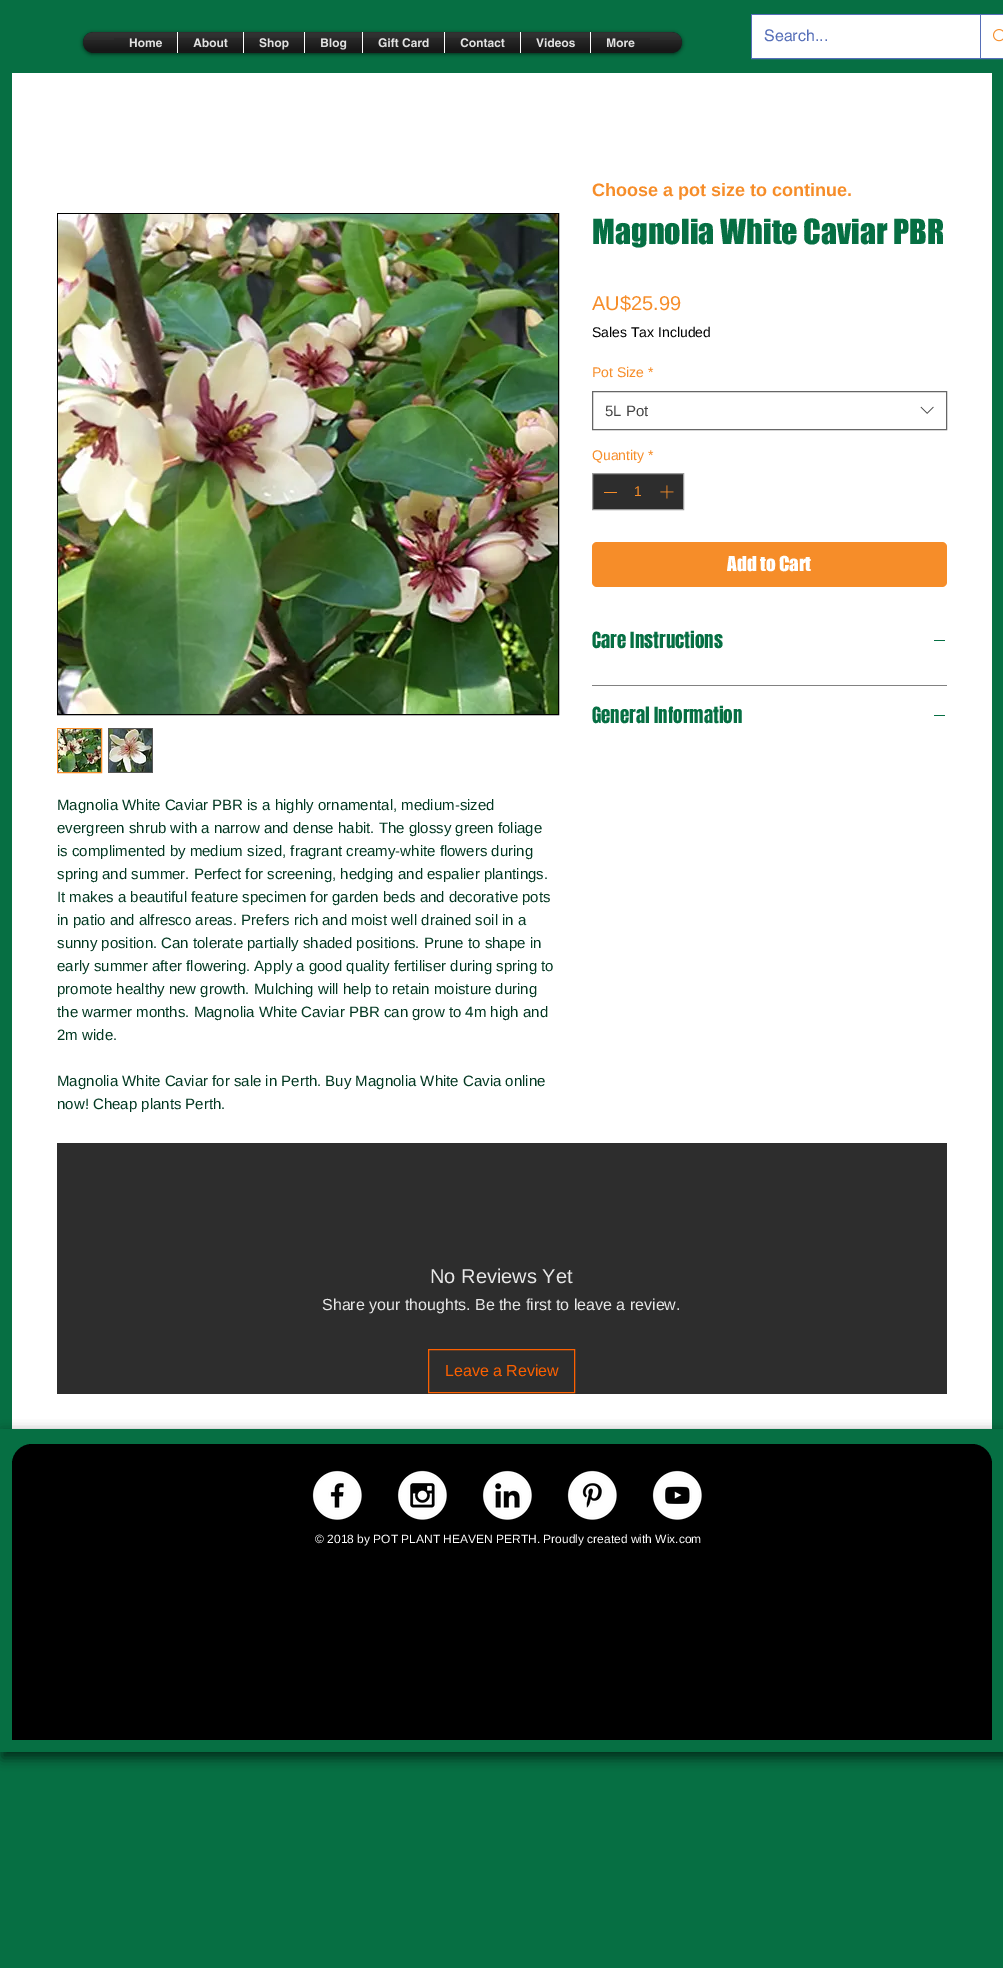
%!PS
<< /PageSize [1003 1968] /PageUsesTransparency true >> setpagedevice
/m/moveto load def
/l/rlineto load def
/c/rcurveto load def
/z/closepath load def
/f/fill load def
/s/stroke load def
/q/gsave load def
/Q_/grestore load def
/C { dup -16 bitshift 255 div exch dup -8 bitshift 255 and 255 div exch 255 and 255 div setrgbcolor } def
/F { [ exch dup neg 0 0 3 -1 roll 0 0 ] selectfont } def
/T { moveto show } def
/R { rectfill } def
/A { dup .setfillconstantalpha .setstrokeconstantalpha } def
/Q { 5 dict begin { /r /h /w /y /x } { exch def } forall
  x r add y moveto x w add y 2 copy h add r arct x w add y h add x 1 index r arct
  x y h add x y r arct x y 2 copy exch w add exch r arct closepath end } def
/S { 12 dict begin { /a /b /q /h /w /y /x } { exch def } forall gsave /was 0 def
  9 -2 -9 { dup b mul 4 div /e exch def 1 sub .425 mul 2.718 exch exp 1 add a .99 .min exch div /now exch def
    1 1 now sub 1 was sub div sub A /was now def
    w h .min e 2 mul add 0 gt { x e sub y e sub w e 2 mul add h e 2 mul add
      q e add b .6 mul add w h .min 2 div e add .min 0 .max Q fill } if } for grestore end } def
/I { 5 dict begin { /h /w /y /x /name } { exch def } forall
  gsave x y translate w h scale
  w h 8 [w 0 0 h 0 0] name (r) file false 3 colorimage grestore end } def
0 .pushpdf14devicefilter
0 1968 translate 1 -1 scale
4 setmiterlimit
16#066F43 C
0 0 1003 1968 R
16#566FB8 C
751.5 14.5 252 44 rectstroke
16#FFFFFF C
752 15 251 43 R
/helvetica-Regular 16 F
16#566FB8 C
(Search...) 764 41 T
980 15 1 43 R
(1.rgb) 993 29 10 13 I
16#000000 C
83 33 599 21 10 2 .6 S
83 32 599 21 10 Q f
(2.rgb) 83 32 599 21 I
(3.rgb) 83 40 599 11 I
114 32 63 21 R
/helvetica-Bold 12 F
16#FFFFFF C
(Home) 129 47 T
(4.rgb) 114 32 63 21 I
(5.rgb) 114 38 63 13 I
16#000000 C
178 32 65 21 R
16#FFFFFF C
177 32 1 21 R
(About) 193 47 T
(6.rgb) 178 32 65 21 I
(7.rgb) 178 38 65 13 I
16#000000 C
244 32 60 21 R
16#FFFFFF C
243 32 1 21 R
(Shop) 259 47 T
(8.rgb) 244 32 60 21 I
(9.rgb) 244 38 60 13 I
16#000000 C
305 32 57 21 R
16#FFFFFF C
304 32 1 21 R
(Blog) 320 47 T
(10.rgb) 305 32 57 21 I
(11.rgb) 305 38 57 13 I
16#000000 C
363 32 81 21 R
16#FFFFFF C
362 32 1 21 R
(Gift Card) 378 47 T
(12.rgb) 363 32 81 21 I
(13.rgb) 363 38 81 13 I
16#000000 C
445 32 75 21 R
16#FFFFFF C
444 32 1 21 R
(Contact) 460 47 T
(14.rgb) 445 32 75 21 I
(15.rgb) 445 38 75 13 I
16#000000 C
521 32 69 21 R
16#FFFFFF C
520 32 1 21 R
(Videos) 536 47 T
(16.rgb) 521 32 69 21 I
(17.rgb) 521 38 69 13 I
16#000000 C
591 32 59 21 R
16#FFFFFF C
590 32 1 21 R
(More) 606 47 T
(18.rgb) 591 32 59 21 I
(19.rgb) 591 38 59 13 I
12 73 980 1356 R
/LiberationSans-Bold 18 F
16#F68D29 C
(Choose a pot size to continue.) 592 196 T
/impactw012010-Regular 32 F
16#066F43 C
(Magnolia White Caviar PBR) 592 244 T
/LiberationSans-Regular 20 F
16#F68D29 C
(AU$25.99) 592 310 T
/LiberationSans-Regular 14 F
16#000000 C
(Sales Tax Included) 592 337 T
16#F68D29 C
(Pot Size *) 592 377 T
16#666666 C
592.5 391.5 354 38 rectstroke
/LiberationSans-Regular 15 F
16#444444 C
(5L Pot) 605 416 T
(20.rgb) 920 406 14 8 I
/LiberationSans-Regular 14 F
16#F68D29 C
(Quantity *) 592 460 T
16#2D2D2D C
592.5 473.5 m 91 0 l 0 36 l -91 0 l z q f Q_
16#9D9D9D C
s
16#F68D29 C
604 492 13 1 R
(1) 634 496 T
(21.rgb) 660 485 14 14 I
592 542 355 45 5 Q f
/impactw012010-Regular 19 F
16#FFFFFF C
(Add to Cart) 727 571 T
16#818181 C
592 685 355 1 R
/Anton-Regular 19 F
16#066F43 C
(Care Instructions) 592 648 T
934 640 11 1 R
(General Information) 592 723 T
934 715 11 1 R
16#000000 C
57.5 213.5 501 501 rectstroke
(22.rgb) 58 214 500 500 I
16#F68D29 C
57.5 728.5 44 44 rectstroke
(23.rgb) 58 729 43 43 I
16#575757 C
108 728 45 45 R
(24.rgb) 109 729 43 43 I
/LiberationSans-Regular 15 F
16#033822 C
(Magnolia White Caviar PBR is a highly ornamental, medium-sized) 57 810 T
(evergreen shrub with a narrow and dense habit. The glossy green foliage) 57 833 T
(is complimented by medium sized, fragrant creamy-white flowers during) 57 856 T
(spring and summer. Perfect for screening, hedging and espalier plantings.) 57 879 T
(It makes a beautiful feature specimen for garden beds and decorative pots) 57 902 T
(in patio and alfresco areas. Prefers rich and moist well drained soil in a) 57 925 T
(sunny position. Can tolerate partially shaded positions. Prune to shape in) 57 948 T
(early summer after flowering. Apply a good quality fertiliser during spring to) 57 971 T
(promote healthy new growth. Mulching will help to retain moisture during) 57 994 T
(the warmer months. Magnolia White Caviar PBR can grow to 4m high and) 57 1017 T
(2m wide.) 57 1040 T
(Magnolia White Caviar for sale in Perth. Buy Magnolia White Cavia online) 57 1086 T
(now! Cheap plants Perth.) 57 1109 T
16#2D2D2D C
57 1143 890 251 R
/LiberationSans-Regular 20 F
16#E8E8E8 C
(No Reviews Yet) 430 1283 T
/LiberationSans-Regular 16 F
(Share your thoughts. Be the first to leave a review.) 322 1310 T
16#FC6000 C
428.5 1349.5 146 43 rectstroke
(Leave a Review) 445 1376 T
q
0 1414 m 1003 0 l 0 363 l -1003 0 l z 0 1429 m 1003 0 l 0 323 l -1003 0 l z eoclip newpath
16#000000 C
2 1433 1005 325 0 6 .6 S
Q_
16#000000 C
32 1444 m 940 0 l 11 0 20 9 20 20 c 0 276 l -980 0 l 0 -276 l 0 -11 9 -20 20 -20 c z f
(25.rgb) 312 1470 50 50 I
(26.rgb) 397 1470 50 50 I
(27.rgb) 482 1470 50 50 I
(28.rgb) 567 1470 50 50 I
(29.rgb) 652 1470 50 50 I
/LiberationSans-Regular 12 F
16#FFFFFF C
(© 2018 by POT PLANT HEAVEN PERTH. Proudly created with Wix.com) 315 1543 T
.poppdf14devicefilter showpage
